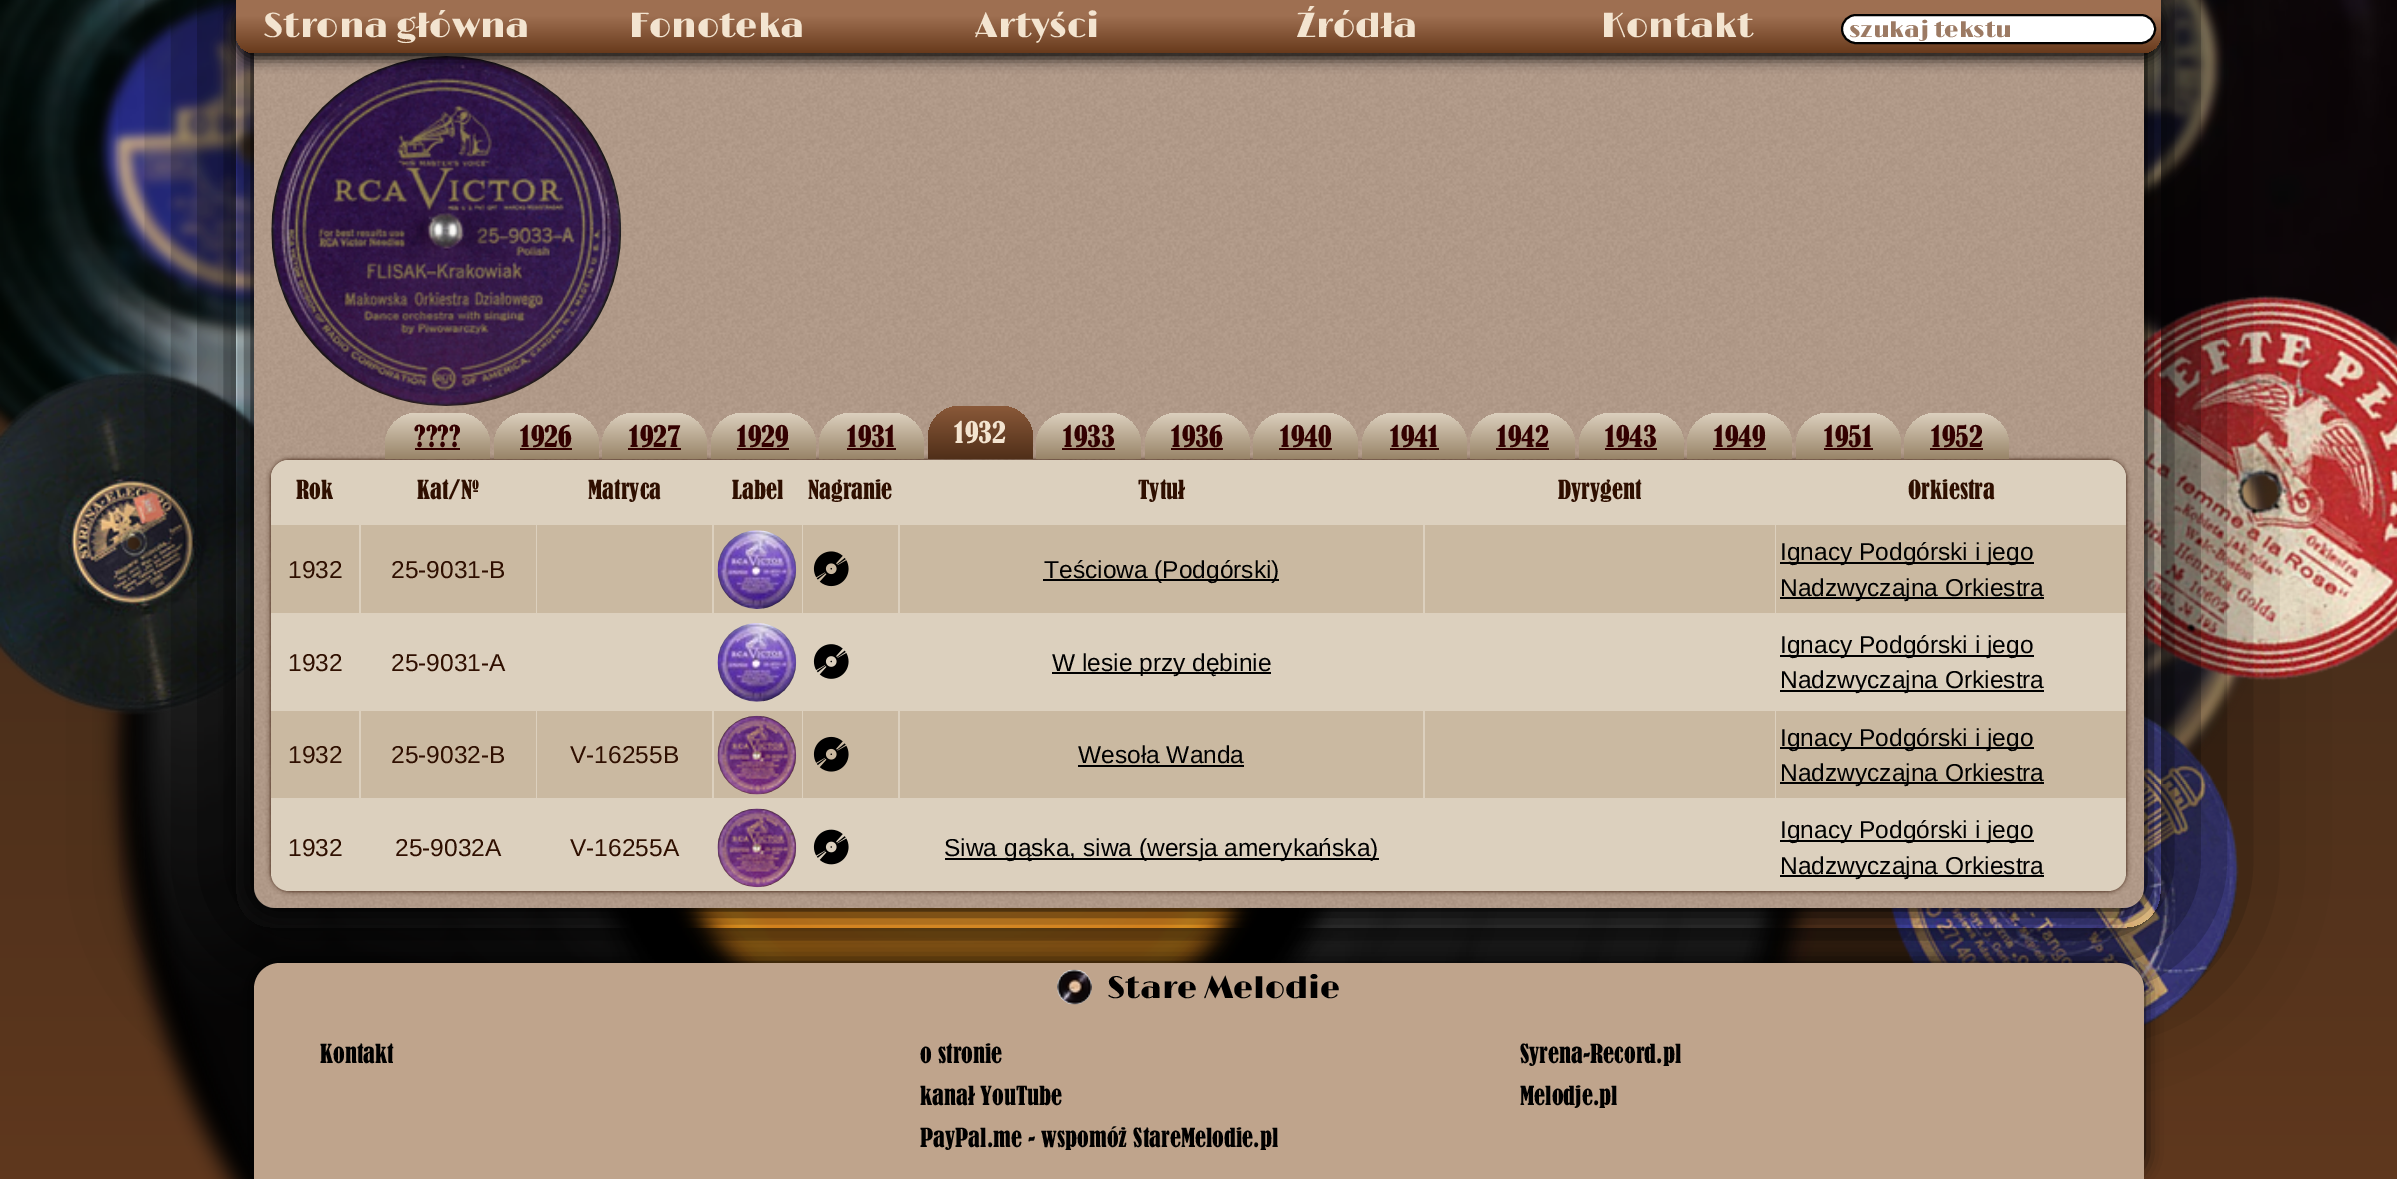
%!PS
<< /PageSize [2397 1179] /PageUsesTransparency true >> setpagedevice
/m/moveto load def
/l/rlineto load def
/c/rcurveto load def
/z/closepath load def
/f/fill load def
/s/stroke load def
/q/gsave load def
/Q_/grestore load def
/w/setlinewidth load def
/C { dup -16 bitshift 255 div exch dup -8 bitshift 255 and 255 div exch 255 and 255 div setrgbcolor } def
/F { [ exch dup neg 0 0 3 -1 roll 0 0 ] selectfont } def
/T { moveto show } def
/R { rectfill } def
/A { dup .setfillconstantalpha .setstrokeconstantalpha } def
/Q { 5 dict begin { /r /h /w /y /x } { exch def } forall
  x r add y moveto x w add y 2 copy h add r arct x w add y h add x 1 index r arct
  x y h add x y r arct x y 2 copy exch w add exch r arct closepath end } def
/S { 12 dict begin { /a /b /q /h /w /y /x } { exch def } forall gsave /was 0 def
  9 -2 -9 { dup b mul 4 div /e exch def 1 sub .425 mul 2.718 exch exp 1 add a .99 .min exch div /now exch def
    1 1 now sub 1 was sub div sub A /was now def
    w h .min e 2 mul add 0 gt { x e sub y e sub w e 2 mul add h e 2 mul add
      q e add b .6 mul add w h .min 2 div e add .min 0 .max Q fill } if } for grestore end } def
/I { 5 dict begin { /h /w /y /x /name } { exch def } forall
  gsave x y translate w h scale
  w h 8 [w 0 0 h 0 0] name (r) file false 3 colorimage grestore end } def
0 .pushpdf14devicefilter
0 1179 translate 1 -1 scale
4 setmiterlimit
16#3B2819 C
0 0 2397 1179 R
q 0 343 m 2397 0 l 0 836 l -2397 0 l z clip newpath
<< /ShadingType 2 /ColorSpace /DeviceRGB /Coords [1199 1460 1199 280] /Extend [true true] /Function << /FunctionType 2 /Domain [0 1] /C0 [.416 .235 .118] /C1 [.231 .157 .098] /N 1 >> >> shfill Q_
(1.rgb) 0 0 2397 1179 I
(12.rgb) 0 295 2397 731 I
q
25 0 m 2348 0 l 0 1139 l -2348 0 l z 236 -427 m 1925 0 l 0 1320 l 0 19.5 -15.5 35 -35 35 c -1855 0 l -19.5 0 -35 -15.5 -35 -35 c z eoclip newpath
16#000000 C
184 -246 2030 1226 88 52.5 .7 S
Q_
16#000000 C
247 -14 1904 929 28 13 1 S
16#C0A28B C
254 -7 1890 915 21 Q f
(2.rgb) 254 52 1890 856 I
(3.rgb) 271 56 351 350 I
16#000000 C
236 5 1925 53 18 7 1 S
q 236 0 m 1925 0 l 0 35 l 0 10 -8 18 -18 18 c -1889 0 l -10 0 -18 -8 -18 -18 c z clip newpath
<< /ShadingType 2 /ColorSpace /DeviceRGB /Coords [1199 0 1199 53] /Extend [true true] /Function << /FunctionType 3 /Domain [0 1] /Functions [<< /FunctionType 2 /Domain [0 1] /C0 [.62 .435 .318] /C1 [.62 .435 .318] /N 1 >> << /FunctionType 2 /Domain [0 1] /C0 [.62 .435 .318] /C1 [.408 .227 .11] /N 1 >>] /Bounds [.3] /Encode [0 1 0 1] >> >> shfill Q_
q 236 0 m 321 0 l 0 53 l -303 0 l -10 0 -18 -8 -18 -18 c z clip newpath
<< /ShadingType 2 /ColorSpace /DeviceRGB /Coords [396 0 396 53] /Extend [true true] /Function << /FunctionType 3 /Domain [0 1] /Functions [<< /FunctionType 2 /Domain [0 1] /C0 [.62 .435 .318] /C1 [.62 .435 .318] /N 1 >> << /FunctionType 2 /Domain [0 1] /C0 [.62 .435 .318] /C1 [.408 .227 .11] /N 1 >>] /Bounds [.3] /Encode [0 1 0 1] >> >> shfill Q_
/Limelight-Light 35 F
16#F3E4D0 C
(Strona główna) 263 37 T
(Fonoteka) 629 37 T
(Artyści) 975 37 T
(Źródła) 1296 37 T
(Kontakt) 1601 37 T
q 1838 0 m 320 0 l 0 35 l 0 10 -8 18 -18 18 c -302 0 l z clip newpath
<< /ShadingType 2 /ColorSpace /DeviceRGB /Coords [1998 0 1998 53] /Extend [true true] /Function << /FunctionType 3 /Domain [0 1] /Functions [<< /FunctionType 2 /Domain [0 1] /C0 [.62 .435 .318] /C1 [.62 .435 .318] /N 1 >> << /FunctionType 2 /Domain [0 1] /C0 [.62 .435 .318] /C1 [.408 .227 .11] /N 1 >>] /Bounds [.3] /Encode [0 1 0 1] >> >> shfill Q_
16#FFFFFF C
1842 15 313 28 14 Q q f Q_
16#000000 C
2 w
s
/Limelight-Light 22.75 F
16#9C7A63 C
(szukaj tekstu) 1849 37 T
16#2F0F00 C
271 460 1855 431 18 2.5 1 S
q 417 413 m 41 0 l 17.5 0 32 14.5 32 32 c 0 14 l -105 0 l 0 -14 l 0 -17.5 14.5 -32 32 -32 c z clip newpath
<< /ShadingType 2 /ColorSpace /DeviceRGB /Coords [438 413 438 459] /Extend [true true] /Function << /FunctionType 2 /Domain [0 1] /C0 [.863 .816 .745] /C1 [.596 .518 .408] /N 1 >> >> shfill Q_
/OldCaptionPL-Regular 28 F
16#330000 C
(????) 414 447 T
415 448 45 2 R
q 526 413 m 41 0 l 17.5 0 32 14.5 32 32 c 0 14 l -105 0 l 0 -14 l 0 -17.5 14.5 -32 32 -32 c z clip newpath
<< /ShadingType 2 /ColorSpace /DeviceRGB /Coords [546 413 546 459] /Extend [true true] /Function << /FunctionType 2 /Domain [0 1] /C0 [.863 .816 .745] /C1 [.596 .518 .408] /N 1 >> >> shfill Q_
(1926) 520 447 T
520 448 52 2 R
q 634 413 m 41 0 l 17.5 0 32 14.5 32 32 c 0 14 l -105 0 l 0 -14 l 0 -17.5 14.5 -32 32 -32 c z clip newpath
<< /ShadingType 2 /ColorSpace /DeviceRGB /Coords [655 413 655 459] /Extend [true true] /Function << /FunctionType 2 /Domain [0 1] /C0 [.863 .816 .745] /C1 [.596 .518 .408] /N 1 >> >> shfill Q_
(1927) 629 447 T
628 448 53 2 R
q 743 413 m 41 0 l 17.5 0 32 14.5 32 32 c 0 14 l -105 0 l 0 -14 l 0 -17.5 14.5 -32 32 -32 c z clip newpath
<< /ShadingType 2 /ColorSpace /DeviceRGB /Coords [763 413 763 459] /Extend [true true] /Function << /FunctionType 2 /Domain [0 1] /C0 [.863 .816 .745] /C1 [.596 .518 .408] /N 1 >> >> shfill Q_
(1929) 737 447 T
737 448 52 2 R
q 851 413 m 41 0 l 17.5 0 32 14.5 32 32 c 0 14 l -105 0 l 0 -14 l 0 -17.5 14.5 -32 32 -32 c z clip newpath
<< /ShadingType 2 /ColorSpace /DeviceRGB /Coords [872 413 872 459] /Extend [true true] /Function << /FunctionType 2 /Domain [0 1] /C0 [.863 .816 .745] /C1 [.596 .518 .408] /N 1 >> >> shfill Q_
(1931) 847 447 T
847 448 49 2 R
q 960 406 m 41 0 l 17.5 0 32 14.5 32 32 c 0 21 l -105 0 l 0 -21 l 0 -17.5 14.5 -32 32 -32 c z clip newpath
<< /ShadingType 2 /ColorSpace /DeviceRGB /Coords [980 406 980 459] /Extend [true true] /Function << /FunctionType 2 /Domain [0 1] /C0 [.541 .349 .224] /C1 [.314 .184 .098] /N 1 >> >> shfill Q_
16#F3E4D0 C
(1932) 954 443 T
q 1068 413 m 41 0 l 17.5 0 32 14.5 32 32 c 0 14 l -105 0 l 0 -14 l 0 -17.5 14.5 -32 32 -32 c z clip newpath
<< /ShadingType 2 /ColorSpace /DeviceRGB /Coords [1089 413 1089 459] /Extend [true true] /Function << /FunctionType 2 /Domain [0 1] /C0 [.863 .816 .745] /C1 [.596 .518 .408] /N 1 >> >> shfill Q_
16#330000 C
(1933) 1063 447 T
1062 448 53 2 R
q 1177 413 m 41 0 l 17.5 0 32 14.5 32 32 c 0 14 l -105 0 l 0 -14 l 0 -17.5 14.5 -32 32 -32 c z clip newpath
<< /ShadingType 2 /ColorSpace /DeviceRGB /Coords [1197 413 1197 459] /Extend [true true] /Function << /FunctionType 2 /Domain [0 1] /C0 [.863 .816 .745] /C1 [.596 .518 .408] /N 1 >> >> shfill Q_
(1936) 1171 447 T
1171 448 52 2 R
q 1285 413 m 41 0 l 17.5 0 32 14.5 32 32 c 0 14 l -105 0 l 0 -14 l 0 -17.5 14.5 -32 32 -32 c z clip newpath
<< /ShadingType 2 /ColorSpace /DeviceRGB /Coords [1306 413 1306 459] /Extend [true true] /Function << /FunctionType 2 /Domain [0 1] /C0 [.863 .816 .745] /C1 [.596 .518 .408] /N 1 >> >> shfill Q_
(1940) 1280 447 T
1279 448 53 2 R
q 1394 413 m 41 0 l 17.5 0 32 14.5 32 32 c 0 14 l -105 0 l 0 -14 l 0 -17.5 14.5 -32 32 -32 c z clip newpath
<< /ShadingType 2 /ColorSpace /DeviceRGB /Coords [1414 413 1414 459] /Extend [true true] /Function << /FunctionType 2 /Domain [0 1] /C0 [.863 .816 .745] /C1 [.596 .518 .408] /N 1 >> >> shfill Q_
(1941) 1390 447 T
1390 448 49 2 R
q 1502 413 m 41 0 l 17.5 0 32 14.5 32 32 c 0 14 l -105 0 l 0 -14 l 0 -17.5 14.5 -32 32 -32 c z clip newpath
<< /ShadingType 2 /ColorSpace /DeviceRGB /Coords [1523 413 1523 459] /Extend [true true] /Function << /FunctionType 2 /Domain [0 1] /C0 [.863 .816 .745] /C1 [.596 .518 .408] /N 1 >> >> shfill Q_
(1942) 1497 447 T
1496 448 53 2 R
q 1611 413 m 41 0 l 17.5 0 32 14.5 32 32 c 0 14 l -105 0 l 0 -14 l 0 -17.5 14.5 -32 32 -32 c z clip newpath
<< /ShadingType 2 /ColorSpace /DeviceRGB /Coords [1631 413 1631 459] /Extend [true true] /Function << /FunctionType 2 /Domain [0 1] /C0 [.863 .816 .745] /C1 [.596 .518 .408] /N 1 >> >> shfill Q_
(1943) 1605 447 T
1605 448 52 2 R
q 1719 413 m 41 0 l 17.5 0 32 14.5 32 32 c 0 14 l -105 0 l 0 -14 l 0 -17.5 14.5 -32 32 -32 c z clip newpath
<< /ShadingType 2 /ColorSpace /DeviceRGB /Coords [1740 413 1740 459] /Extend [true true] /Function << /FunctionType 2 /Domain [0 1] /C0 [.863 .816 .745] /C1 [.596 .518 .408] /N 1 >> >> shfill Q_
(1949) 1714 447 T
1713 448 53 2 R
q 1828 413 m 41 0 l 17.5 0 32 14.5 32 32 c 0 14 l -105 0 l 0 -14 l 0 -17.5 14.5 -32 32 -32 c z clip newpath
<< /ShadingType 2 /ColorSpace /DeviceRGB /Coords [1848 413 1848 459] /Extend [true true] /Function << /FunctionType 2 /Domain [0 1] /C0 [.863 .816 .745] /C1 [.596 .518 .408] /N 1 >> >> shfill Q_
(1951) 1824 447 T
1824 448 49 2 R
q 1936 413 m 41 0 l 17.5 0 32 14.5 32 32 c 0 14 l -105 0 l 0 -14 l 0 -17.5 14.5 -32 32 -32 c z clip newpath
<< /ShadingType 2 /ColorSpace /DeviceRGB /Coords [1957 413 1957 459] /Extend [true true] /Function << /FunctionType 2 /Domain [0 1] /C0 [.863 .816 .745] /C1 [.596 .518 .408] /N 1 >> >> shfill Q_
(1952) 1931 447 T
1930 448 53 2 R
16#DCD0BE C
271 460 1855 431 18 Q f
271 460 88 60 18 Q f
/OldCaptionPL-Regular 24.5 F
16#2F0F00 C
(Rok) 296 499 T
(Kat/№) 417 499 T
(Matryca) 588 499 T
(Label) 732 499 T
(Nagranie) 808 499 T
(Tytuł) 1138 499 T
(Dyrygent) 1558 499 T
16#DCD0BE C
1776 460 350 60 18 Q f
16#2F0F00 C
(Orkiestra) 1908 499 T
16#CAB9A1 C
271 525 88 88 R
/LiberationSans-Regular 24.5 F
16#2F0F00 C
(1932) 288 578 T
16#CAB9A1 C
361 525 175 88 R
16#2F0F00 C
(25-9031-B) 391 578 T
16#CAB9A1 C
537 525 175 88 R
714 525 88 88 R
(4.rgb) 717 530 80 79 I
803 525 95 88 R
(5.rgb) 813 551 36 36 I
900 525 523 88 R
16#000000 C
1043 579 236 2 R
(Teściowa \(Podgórski\)) 1044 578 T
16#CAB9A1 C
1425 525 350 88 R
1776 525 350 88 R
16#000000 C
1780 562 254 2 R
(Ignacy Podgórski i jego) 1780 560 T
1780 597 264 2 R
(Nadzwyczajna Orkiestra) 1780 596 T
16#2F0F00 C
(1932) 288 671 T
(25-9031-A) 391 671 T
(6.rgb) 717 623 80 79 I
(7.rgb) 813 644 36 35 I
16#000000 C
1052 672 219 2 R
(W lesie przy dębinie) 1052 671 T
1780 655 254 2 R
(Ignacy Podgórski i jego) 1780 653 T
1780 690 264 2 R
(Nadzwyczajna Orkiestra) 1780 688 T
16#CAB9A1 C
271 711 88 87 R
16#2F0F00 C
(1932) 288 763 T
16#CAB9A1 C
361 711 175 87 R
16#2F0F00 C
(25-9032-B) 391 763 T
16#CAB9A1 C
537 711 175 87 R
16#2F0F00 C
(V-16255B) 570 763 T
16#CAB9A1 C
714 711 88 87 R
(8.rgb) 717 715 80 80 I
803 711 95 87 R
(9.rgb) 813 736 36 36 I
900 711 523 87 R
16#000000 C
(Wesoła Wanda) 1078 763 T
1078 765 166 2 R
16#CAB9A1 C
1425 711 350 87 R
1776 711 350 87 R
16#000000 C
1780 747 254 2 R
(Ignacy Podgórski i jego) 1780 746 T
1780 782 264 2 R
(Nadzwyczajna Orkiestra) 1780 781 T
16#2F0F00 C
(1932) 288 856 T
(25-9032A) 395 856 T
(V-16255A) 570 856 T
(10.rgb) 717 808 80 80 I
(11.rgb) 813 829 36 36 I
16#000000 C
945 858 434 2 R
(Siwa gąska, siwa \(wersja amerykańska\)) 944 856 T
1780 840 254 2 R
(Ignacy Podgórski i jego) 1780 838 T
1780 875 264 2 R
(Nadzwyczajna Orkiestra) 1780 874 T
254 963 1890 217 26 9 1 S
16#BFA48C C
280 963 m 1838 0 l 14.5 0 26 11.5 26 26 c 0 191 l -1890 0 l 0 -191 l 0 -14.5 11.5 -26 26 -26 c z f
(13.rgb) 1057 969 35 36 I
/Limelight-Light 31.5 F
16#000000 C
(Stare Melodie) 1107 998 T
/OldCaptionPL-Regular 24.5 F
(Kontakt) 320 1063 T
(o stronie) 920 1063 T
(kanał YouTube) 920 1105 T
(PayPal.me - wspomóż StareMelodie.pl) 920 1147 T
(Syrena-Record.pl) 1520 1063 T
(Melodje.pl) 1520 1105 T
.poppdf14devicefilter showpage
